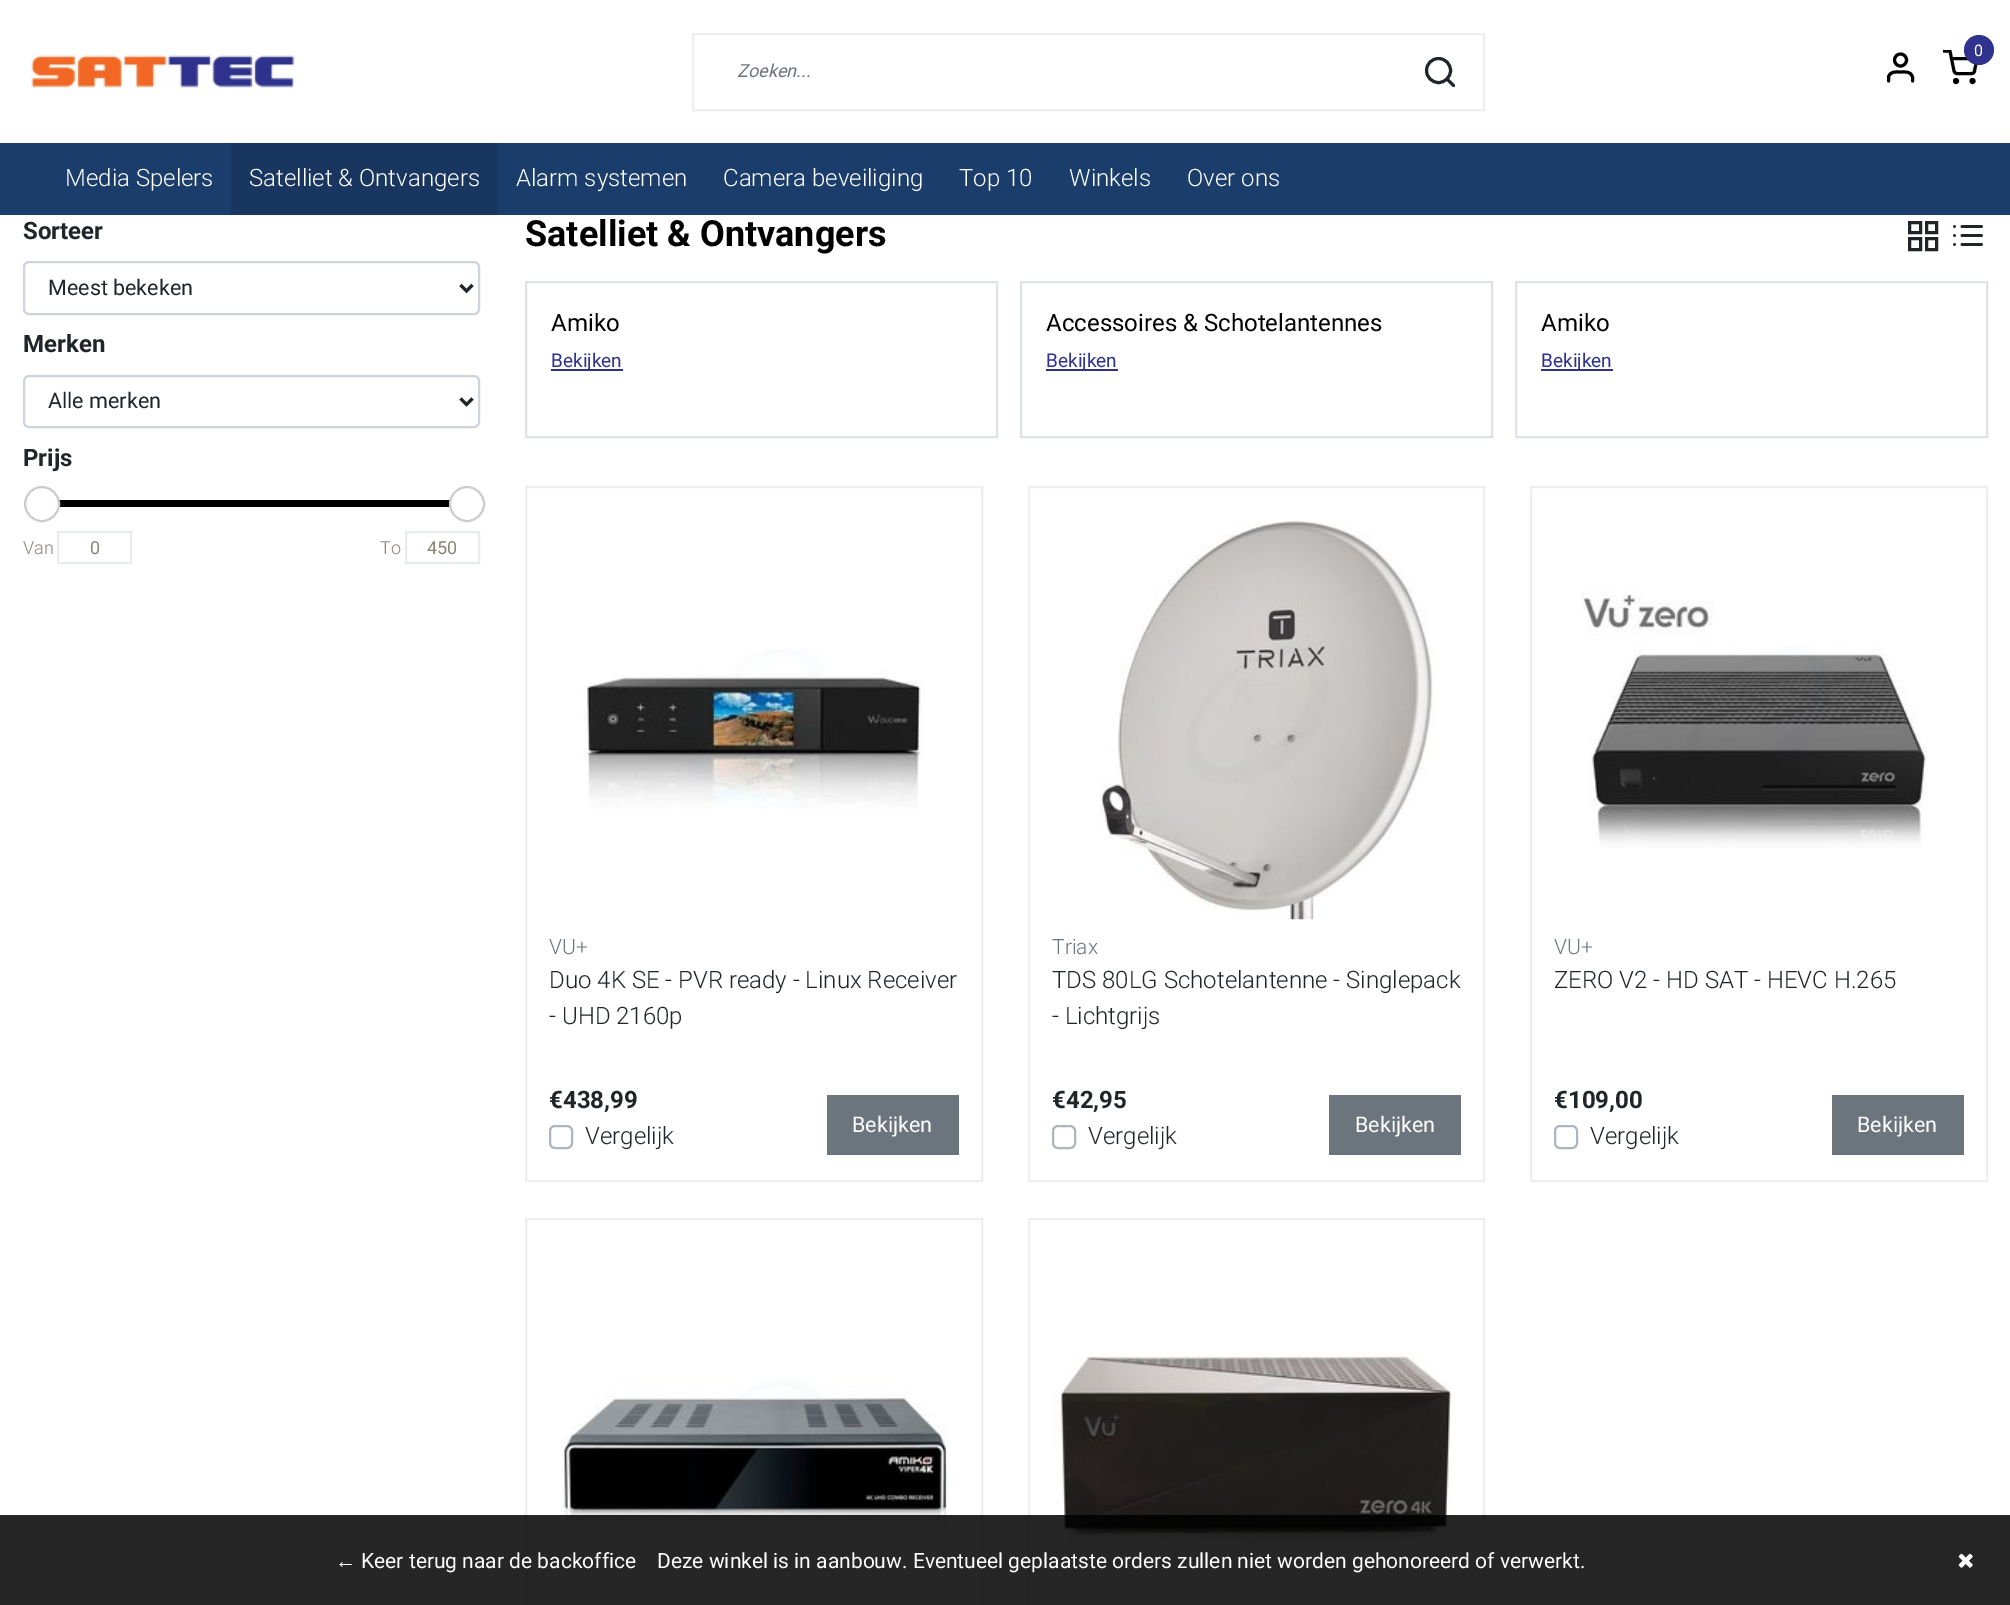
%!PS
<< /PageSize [2010 1605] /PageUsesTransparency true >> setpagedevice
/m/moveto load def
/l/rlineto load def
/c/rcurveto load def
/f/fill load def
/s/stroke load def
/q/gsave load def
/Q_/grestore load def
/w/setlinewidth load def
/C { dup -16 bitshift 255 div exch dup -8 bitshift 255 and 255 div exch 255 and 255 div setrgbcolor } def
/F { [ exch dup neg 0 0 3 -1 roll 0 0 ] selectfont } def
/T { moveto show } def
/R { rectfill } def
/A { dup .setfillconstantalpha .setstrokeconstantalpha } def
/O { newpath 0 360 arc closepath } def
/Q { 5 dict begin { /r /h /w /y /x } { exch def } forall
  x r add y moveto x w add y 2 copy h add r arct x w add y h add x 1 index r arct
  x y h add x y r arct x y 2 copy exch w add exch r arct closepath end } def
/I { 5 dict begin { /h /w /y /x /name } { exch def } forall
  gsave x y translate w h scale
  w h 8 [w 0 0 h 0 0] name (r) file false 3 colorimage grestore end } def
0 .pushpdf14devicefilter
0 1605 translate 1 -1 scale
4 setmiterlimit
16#FFFFFF C
0 0 2010 1605 R
q
1943 50 36 36 rectclip
16#000000 C
3 w
1 setlinecap
1 setlinejoin
1944 51 m 6 0 l 4 20 l .5 1.5 1.5 2.5 3 2.5 c 14.5 0 l 1.5 0 3 -1 3 -2.5 c 2.5 -12.5 l -25.5 0 l s
Q_
16#2F338E C
1979 50 15 O f
/Roboto-Regular 16 F
16#FFFFFF C
(0) 1974 56 T
16#000000 C
3 w
1956 81 1.5 O s
1972.5 81 1.5 O s
1 setlinecap
1 setlinejoin
1912.5 81 m 0 -4 l -1.5 -6 -7.5 -5 -12 -5 c -4.5 0 -10.5 -1 -12 5 c 0 4 l s
0 setlinecap
0 setlinejoin
1900.5 60 6 O s
(1.rgb) 31 55 264 33 I
16#EEEEEE C
2 w
693 34 791 76 rectstroke
/Roboto-Italic 18 F
16#6C757D C
(Zoeken...) 737 77 T
16#212529 C
3 w
1438.5 70.5 12 O s
1 setlinecap
1 setlinejoin
1453.5 85.5 m -6.5 -6.5 l s
16#1B3D6B C
0 143 2010 72 R
/Roboto-Light 24 F
16#FFFFFF C
(Media Spelers) 65 186 T
16#183660 C
231 143 267 72 R
16#FFFFFF C
(Satelliet & Ontvangers) 249 186 T
(Alarm systemen) 516 186 T
(Camera beveiliging) 723 186 T
(Top 10) 959 186 T
(Winkels) 1069 186 T
(Over ons) 1187 186 T
/Roboto-Bold 24 F
16#212529 C
(Sorteer) 23 239 T
16#CED4DA C
2 w
0 setlinecap
0 setlinejoin
24 262 455 52 5 Q s
16#212529 C
3 w
460.5 285 m 6 6 l 6 -6 l s
/Roboto-Regular 21.5 F
(Meest bekeken) 48 295 T
/Roboto-Bold 24 F
(Merken) 23 352 T
16#CED4DA C
2 w
24 376 455 51 5 Q s
16#212529 C
3 w
460.5 398.5 m 6 6 l 6 -6 l s
/Roboto-Regular 21.5 F
(Alle merken) 48 408 T
/Roboto-Bold 24 F
(Prijs) 23 466 T
16#000000 C
59 500 391 7 R
16#FFFFFF C
42 504 17 O q f Q_
16#CCCCCC C
2 w
s
16#FFFFFF C
467 504 17 O q f Q_
16#CCCCCC C
s
/Roboto-Light 18 F
16#888377 C
(Van) 23 554 T
16#E9ECEF C
58 532 73 31 rectstroke
/Roboto-Regular 18 F
16#888377 C
(0) 90 554 T
/Roboto-Light 18 F
(To) 380 554 T
16#E9ECEF C
406 532 73 31 rectstroke
/Roboto-Regular 18 F
16#888377 C
(450) 427 554 T
/Roboto-Bold 36 F
16#000000 C
(Satelliet & Ontvangers) 525 246 T
16#212529 C
3 w
1909.5 222.5 11 10 rectstroke
1926.5 222.5 10 10 rectstroke
1926.5 238.5 10 11 rectstroke
1909.5 238.5 11 11 rectstroke
(2.rgb) 1953 225 30 21 I
16#DEE2E6 C
2 w
526 282 471 155 rectstroke
/Roboto-Regular 24 F
16#000000 C
(Amiko) 551 331 T
16#2F338E C
551 369 72 2 R
/Roboto-Regular 19 F
(Bekijken) 551 367 T
16#DEE2E6 C
1021 282 471 155 rectstroke
/Roboto-Regular 24 F
16#000000 C
(Accessoires & Schotelantennes) 1046 331 T
16#2F338E C
1046 369 72 2 R
/Roboto-Regular 19 F
(Bekijken) 1046 367 T
16#DEE2E6 C
1516 282 471 155 rectstroke
/Roboto-Regular 24 F
16#000000 C
(Amiko) 1541 331 T
16#2F338E C
1541 369 72 2 R
/Roboto-Regular 19 F
(Bekijken) 1541 367 T
16#EEEEEE C
526 487 456 694 rectstroke
(3.rgb) 583 649 341 160 I
/Roboto-Light 21 F
16#6C757D C
(VU+) 549 954 T
/Roboto-Light 24 F
16#212529 C
(Duo 4K SE - PVR ready - Linux Receiver) 549 988 T
(- UHD 2160p) 549 1024 T
/Roboto-Bold 24 F
(€438,99) 549 1108 T
16#ADB5BD C
550 1126 22 22 5 Q s
/Roboto-Light 24 F
16#212529 C
(Vergelijk) 585 1144 T
16#6C757D C
827 1095 132 60 R
/Roboto-Regular 21.5 F
16#FFFFFF C
(Bekijken) 852 1132 T
16#EEEEEE C
1029 487 455 694 rectstroke
(4.rgb) 1098 521 338 399 I
/Roboto-Light 21 F
16#6C757D C
(Triax) 1052 954 T
/Roboto-Light 24 F
16#212529 C
(TDS 80LG Schotelantenne - Singlepack) 1052 988 T
(- Lichtgrijs) 1052 1024 T
/Roboto-Bold 24 F
(€42,95) 1052 1108 T
16#ADB5BD C
1053 1126 22 22 5 Q s
/Roboto-Light 24 F
16#212529 C
(Vergelijk) 1088 1144 T
16#6C757D C
1329 1095 132 60 R
/Roboto-Regular 21.5 F
16#FFFFFF C
(Bekijken) 1355 1132 T
16#EEEEEE C
1531 487 456 694 rectstroke
(5.rgb) 1581 590 347 258 I
/Roboto-Light 21 F
16#6C757D C
(VU+) 1554 954 T
/Roboto-Light 24 F
16#212529 C
(ZERO V2 - HD SAT - HEVC H.265) 1554 988 T
/Roboto-Bold 24 F
(€109,00) 1554 1108 T
16#ADB5BD C
1555 1126 22 22 5 Q s
/Roboto-Light 24 F
16#212529 C
(Vergelijk) 1590 1144 T
16#6C757D C
1832 1095 132 60 R
/Roboto-Regular 21.5 F
16#FFFFFF C
(Bekijken) 1857 1132 T
16#EEEEEE C
526 1219 456 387 rectstroke
(6.rgb) 560 1379 388 149 I
1029 1219 455 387 rectstroke
(7.rgb) 1052 1355 404 190 I
0.85 A
16#000000 C
0 1515 2010 90 R
/LiberationSans-Regular 21 F
1 A
16#FFFFFF C
(←) 335 1568 T
/Roboto-Regular 21 F
(Keer terug naar de backoffice) 361 1568 T
(Deze winkel is in aanbouw. Eventueel geplaatste orders zullen niet worden gehonoreerd of verwerkt.) 657 1568 T
(8.rgb) 1958 1553 15 15 I
.poppdf14devicefilter showpage
